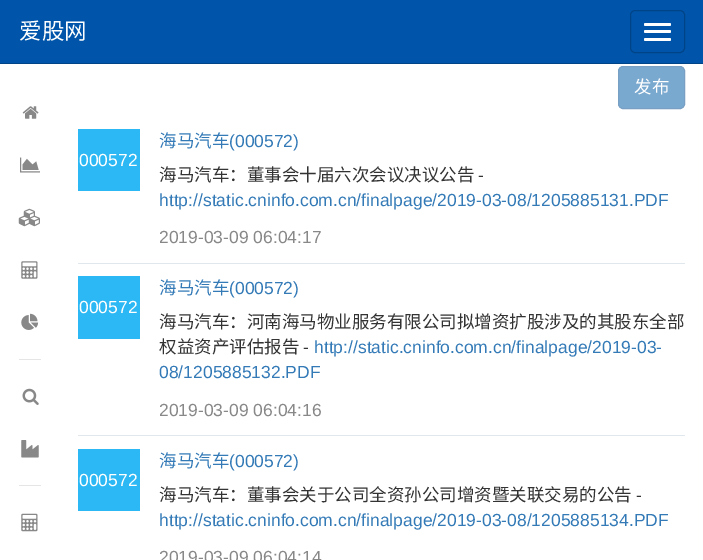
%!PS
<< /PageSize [703 560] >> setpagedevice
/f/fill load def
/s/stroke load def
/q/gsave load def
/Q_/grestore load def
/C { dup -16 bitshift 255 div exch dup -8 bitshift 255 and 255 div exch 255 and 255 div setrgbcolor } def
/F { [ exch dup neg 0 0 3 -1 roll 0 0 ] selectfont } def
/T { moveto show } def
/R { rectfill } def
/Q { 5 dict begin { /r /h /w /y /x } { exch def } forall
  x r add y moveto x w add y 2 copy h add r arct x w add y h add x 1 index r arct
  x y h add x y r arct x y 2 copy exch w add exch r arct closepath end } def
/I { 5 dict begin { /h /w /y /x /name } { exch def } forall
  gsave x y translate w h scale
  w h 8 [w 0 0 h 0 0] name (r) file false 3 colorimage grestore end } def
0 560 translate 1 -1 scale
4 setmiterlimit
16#FFFFFF C
0 0 703 560 R
16#0055AA C
0 0 703 63 R
16#004488 C
0 63 703 1 R
/NotoSansCJKSC-Regular 22.5 F
16#FFFFFF C
(爱股网) 19 39 T
16#004488 C
630.5 10.5 54 42 4.5 Q s
16#FFFFFF C
644 23 27 3 1.5 Q f
644 30 27 3 1.5 Q f
644 38 27 3 1.5 Q f
(1.rgb) 22 106 17 13 I
(2.rgb) 20 157 20 16 I
(3.rgb) 18 208 22 19 I
(4.rgb) 21 261 17 18 I
(5.rgb) 21 313 18 17 I
16#E5E5E5 C
19 359 22 1 R
(6.rgb) 22 388 17 17 I
(7.rgb) 21 440 18 18 I
19 485 22 1 R
(8.rgb) 21 513 17 19 I
16#7AA9D0 C
618.5 66.5 66 42 4.5 Q q f Q_
16#77A0C4 C
s
/NotoSansCJKSC-Regular 17.5 F
16#FFFFFF C
(发布) 634 93 T
16#E1E8ED C
78 263 607 1 R
16#2CB8F4 C
78 129 62 62 R
/LiberationSans-Regular 17.5 F
16#FFFFFF C
(000572) 79 166 T
/NotoSansCJKSC-Regular 17.5 F
16#337AB7 C
(海马汽车) 159 147 T
/LiberationSans-Regular 17.5 F
(\(000572\)) 229 147 T
/NotoSansCJKSC-Regular 17.5 F
16#333333 C
(海马汽车：董事会十届六次会议决议公告) 159 181 T
/LiberationSans-Regular 17.5 F
(-) 478 181 T
16#337AB7 C
(http://static.cninfo.com.cn/finalpage/2019-03-08/1205885131.PDF) 159 206 T
16#888888 C
(2019-03-09 06:04:17) 159 243 T
16#E1E8ED C
78 435 607 1 R
16#2CB8F4 C
78 276 62 63 R
16#FFFFFF C
(000572) 79 313 T
/NotoSansCJKSC-Regular 17.5 F
16#337AB7 C
(海马汽车) 159 294 T
/LiberationSans-Regular 17.5 F
(\(000572\)) 229 294 T
/NotoSansCJKSC-Regular 17.5 F
16#333333 C
(海马汽车：河南海马物业服务有限公司拟增资扩股涉及的其股东全部) 159 328 T
(权益资产评估报告) 159 353 T
/LiberationSans-Regular 17.5 F
(-) 303 353 T
16#337AB7 C
(http://static.cninfo.com.cn/finalpage/2019-03-) 314 353 T
(08/1205885132.PDF) 159 378 T
16#888888 C
(2019-03-09 06:04:16) 159 416 T
16#2CB8F4 C
78 449 62 62 R
16#FFFFFF C
(000572) 79 486 T
/NotoSansCJKSC-Regular 17.5 F
16#337AB7 C
(海马汽车) 159 467 T
/LiberationSans-Regular 17.5 F
(\(000572\)) 229 467 T
/NotoSansCJKSC-Regular 17.5 F
16#333333 C
(海马汽车：董事会关于公司全资孙公司增资暨关联交易的公告) 159 501 T
/LiberationSans-Regular 17.5 F
(-) 636 501 T
16#337AB7 C
(http://static.cninfo.com.cn/finalpage/2019-03-08/1205885134.PDF) 159 526 T
16#888888 C
(2019-03-09 06:04:14) 159 563 T
showpage
